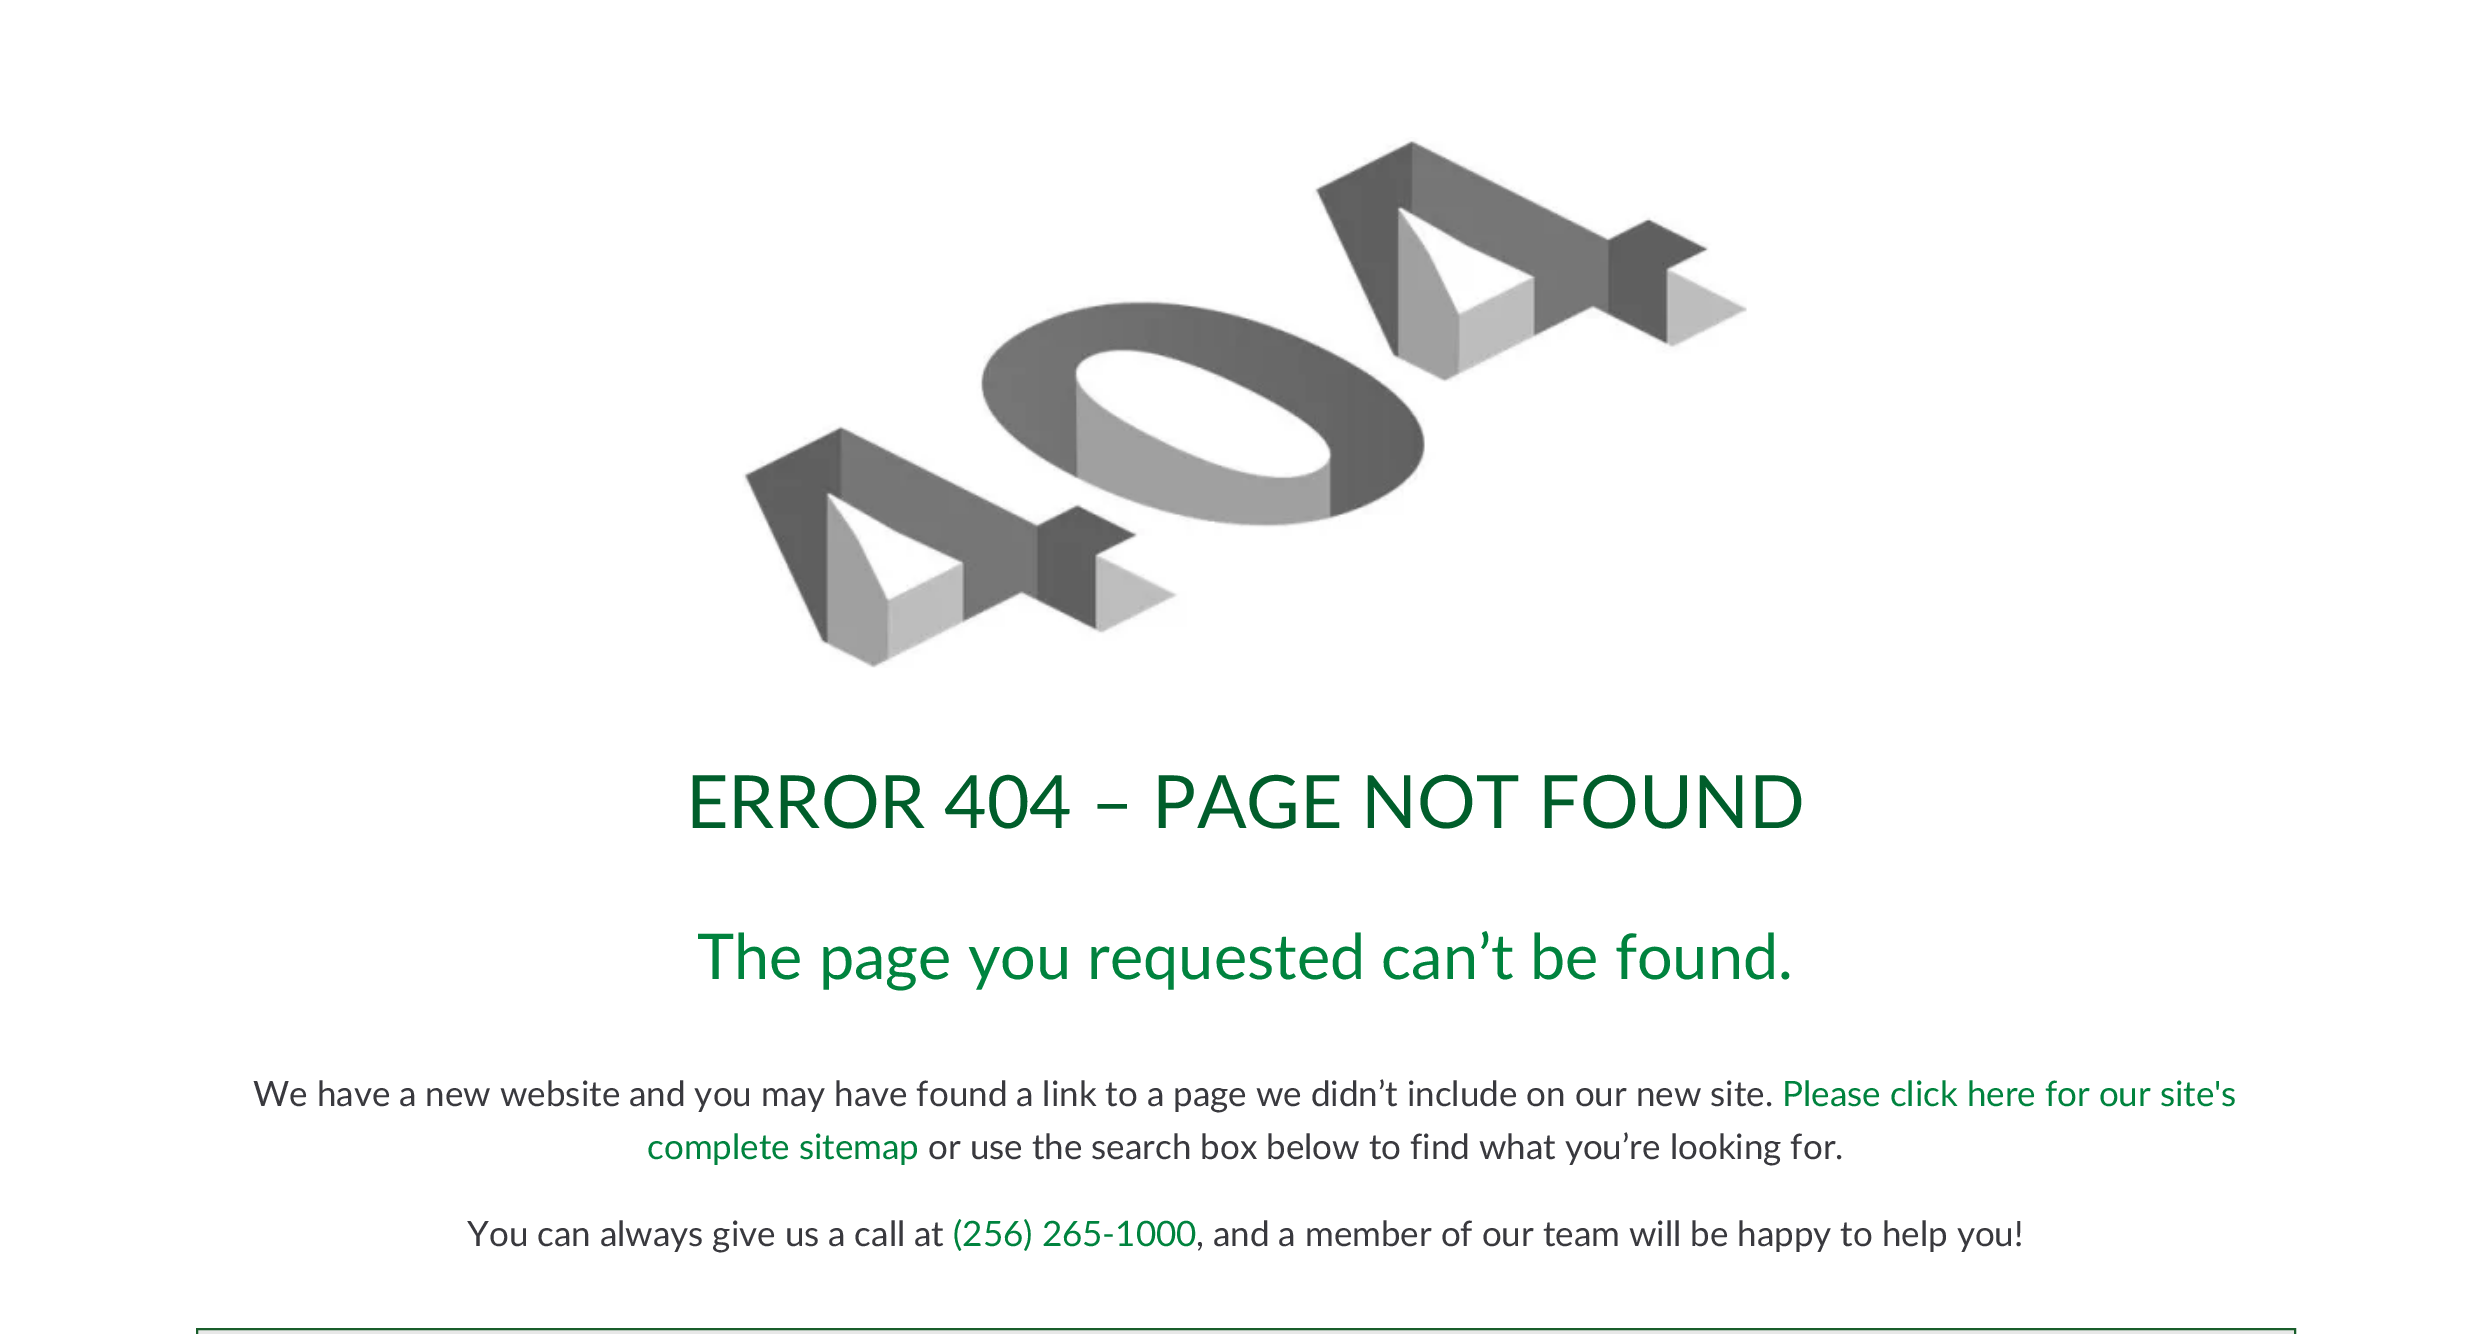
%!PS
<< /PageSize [2490 1334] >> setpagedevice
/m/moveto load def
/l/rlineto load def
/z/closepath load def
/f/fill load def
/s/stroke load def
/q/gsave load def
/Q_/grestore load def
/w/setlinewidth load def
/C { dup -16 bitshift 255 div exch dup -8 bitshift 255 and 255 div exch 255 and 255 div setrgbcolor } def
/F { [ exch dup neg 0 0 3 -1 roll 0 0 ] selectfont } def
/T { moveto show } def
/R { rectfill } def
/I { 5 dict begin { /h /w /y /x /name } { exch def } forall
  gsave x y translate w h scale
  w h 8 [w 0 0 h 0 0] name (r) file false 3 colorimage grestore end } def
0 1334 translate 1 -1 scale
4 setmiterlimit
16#FFFFFF C
0 0 2490 1334 R
(1.rgb) 742 137 1005 531 I
/Lato-Regular 73.5 F
16#005E2B C
(ERROR 404 – PAGE NOT FOUND) 686 828 T
/Lato-Regular 63 F
16#00833E C
(The page you requested can’t be found.) 697 979 T
/Lato-Regular 35 F
16#39393E C
(We have a new website and you may have found a link to a page we didn’t include on our new site.) 253 1106 T
16#00833E C
(Please click here for our site's) 1782 1106 T
(complete sitemap) 647 1159 T
16#39393E C
(or use the search box below to find what you’re looking for.) 928 1159 T
(You can always give us a call at) 467 1246 T
16#00833E C
(\(256\) 265-1000) 953 1246 T
16#39393E C
(, and a member of our team will be happy to help you!) 1196 1246 T
16#E8E8E8 C
197 1329 m 2098 0 l 0 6 l -2098 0 l z q f Q_
16#195E2B C
2 w
s
showpage
